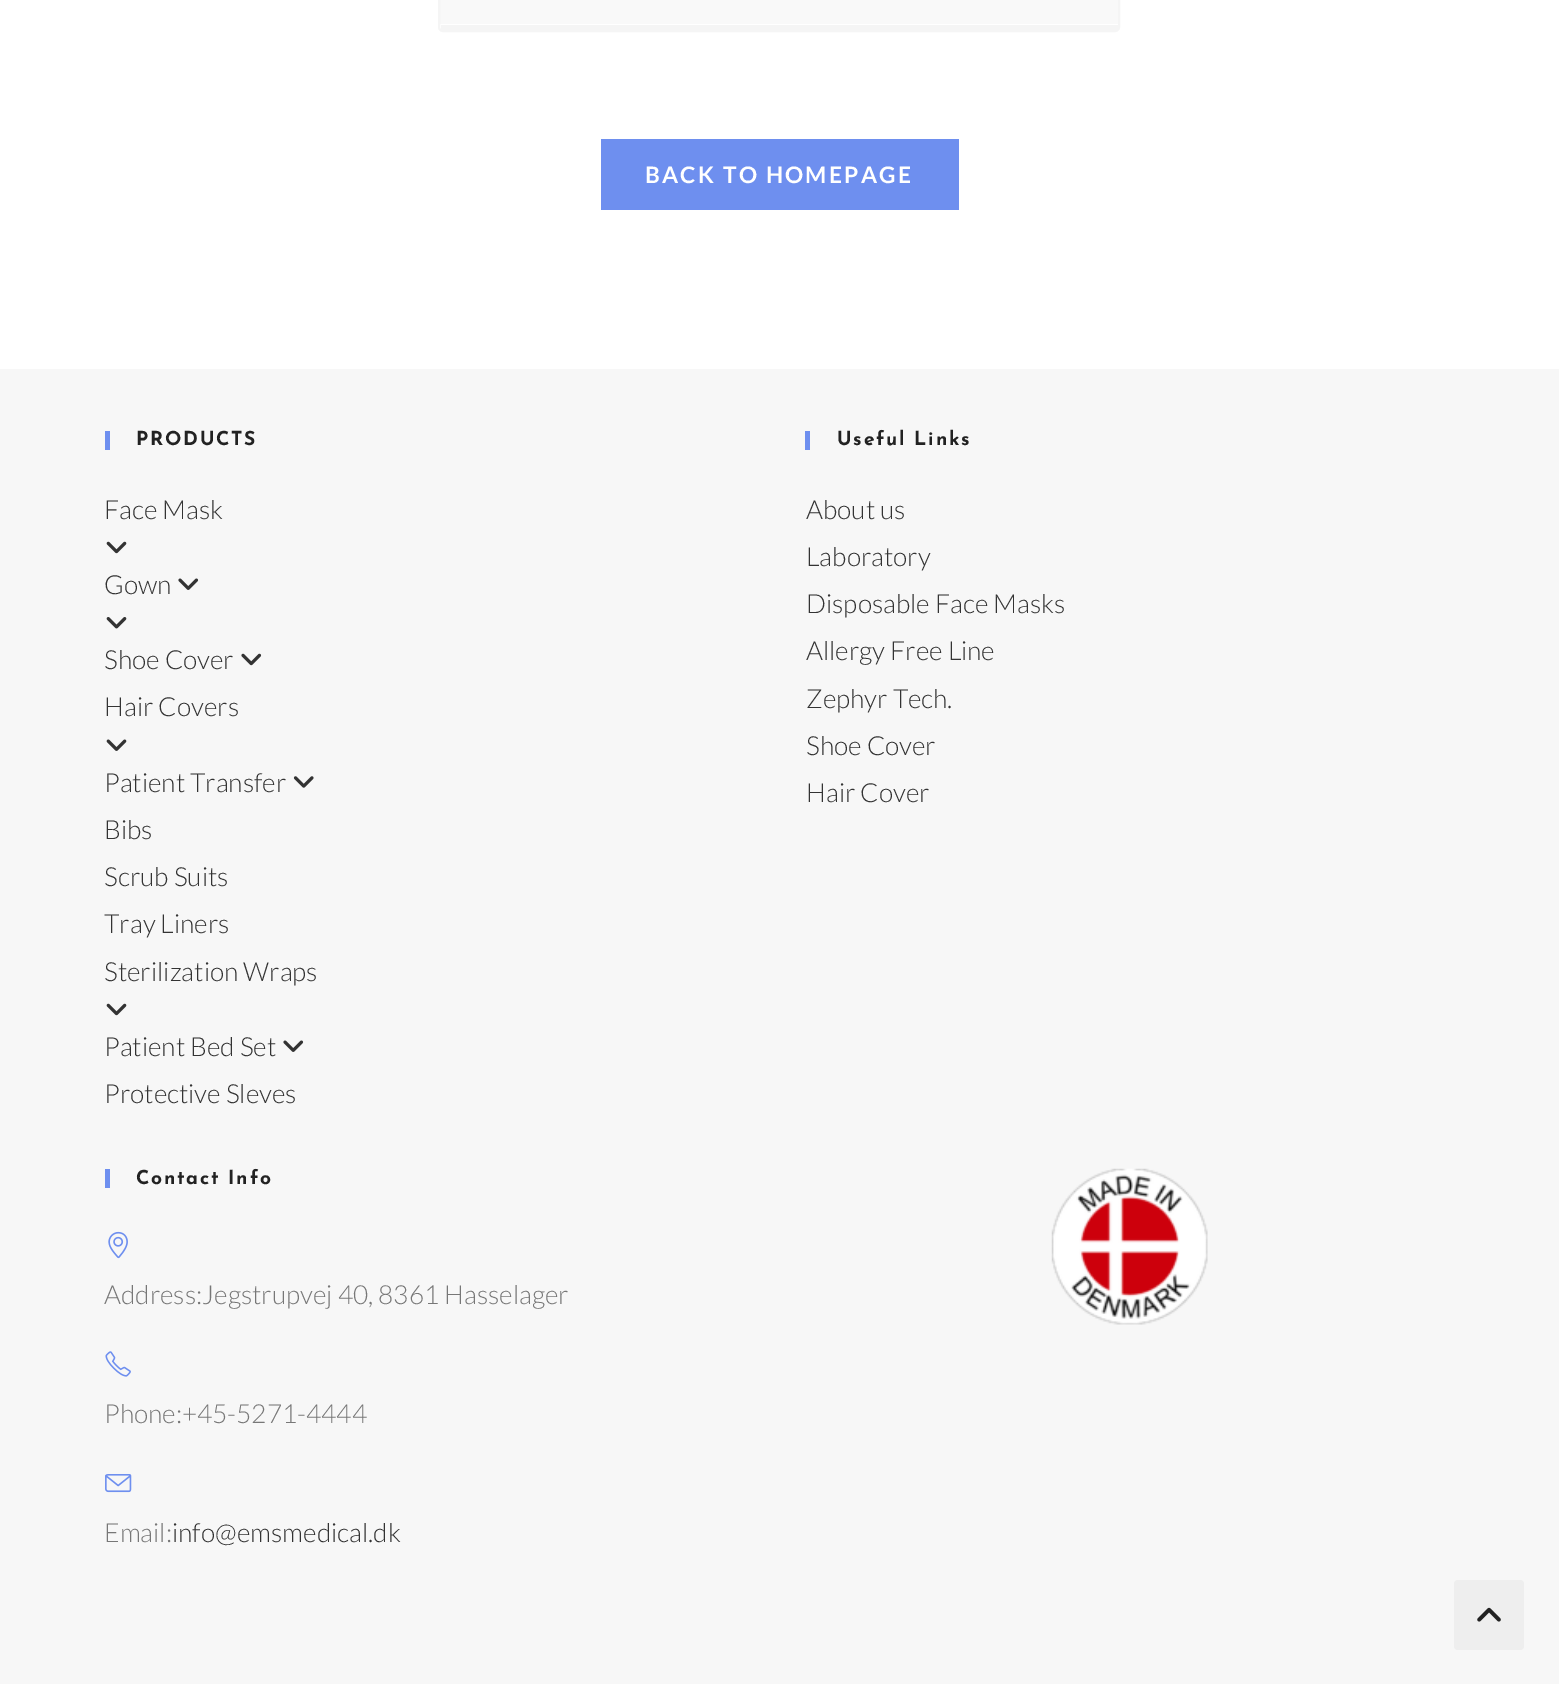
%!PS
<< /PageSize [1559 1684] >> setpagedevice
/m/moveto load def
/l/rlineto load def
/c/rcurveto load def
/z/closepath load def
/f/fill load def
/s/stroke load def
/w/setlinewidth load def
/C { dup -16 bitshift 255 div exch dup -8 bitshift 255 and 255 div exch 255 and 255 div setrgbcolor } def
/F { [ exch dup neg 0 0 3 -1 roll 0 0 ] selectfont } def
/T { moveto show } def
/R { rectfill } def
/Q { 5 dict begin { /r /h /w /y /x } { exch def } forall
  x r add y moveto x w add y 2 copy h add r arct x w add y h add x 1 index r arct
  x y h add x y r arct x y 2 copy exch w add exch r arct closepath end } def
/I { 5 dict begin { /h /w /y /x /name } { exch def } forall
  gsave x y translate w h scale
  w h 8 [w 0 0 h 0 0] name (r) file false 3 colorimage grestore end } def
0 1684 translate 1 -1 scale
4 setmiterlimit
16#FFFFFF C
0 0 1559 1684 R
16#F9F9F9 C
443 -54 m 672 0 l 2 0 3 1 3 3 c 0 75 l -679 0 l 0 -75 l 0 -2 2 -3 4 -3 c z f
16#F5F5F5 C
2 w
439 -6 680 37 4 Q s
441 25 677 5 R
16#6E8FEF C
601 139 358 71 R
/Lato-Bold 22.75 F
16#FFFFFF C
645 183 m 2.25 0 (BACK TO HOMEPAGE) ashow
16#F7F7F7 C
0 369 1559 1315 R
16#6E8FEF C
105 431 5 19 R
/JosefinSans-Bold 19.25 F
16#222222 C
136 445 m 1.75 0 (PRODUCTS) ashow
/Lato-Light 26.25 F
16#333333 C
(Face Mask) 104 519 T
(1.rgb) 106 541 21 13 I
(Gown) 104 594 T
(2.rgb) 178 578 21 12 I
(3.rgb) 106 617 21 12 I
(Shoe Cover) 104 669 T
(4.rgb) 241 653 21 13 I
(Hair Covers) 104 716 T
(5.rgb) 106 739 21 12 I
(Patient Transfer) 104 792 T
(6.rgb) 293 776 21 12 I
(Bibs) 104 839 T
(Scrub Suits) 104 886 T
(Tray Liners) 104 933 T
(Sterilization Wraps) 104 981 T
(1.rgb) 106 1003 21 13 I
(Patient Bed Set) 104 1056 T
(2.rgb) 283 1040 21 12 I
(Protective Sleves) 104 1103 T
16#6E8FEF C
805 431 5 19 R
/JosefinSans-Bold 19.25 F
16#222222 C
837 445 m 1.75 0 (Useful Links) ashow
/Lato-Light 26.25 F
16#333333 C
(About us) 806 519 T
(Laboratory) 806 566 T
(Disposable Face Masks) 806 613 T
(Allergy Free Line) 806 660 T
(Zephyr Tech.) 806 708 T
(Shoe Cover) 806 755 T
(Hair Cover) 806 802 T
16#6E8FEF C
105 1169 5 19 R
/JosefinSans-Bold 19.25 F
16#222222 C
136 1184 m 1.75 0 (Contact Info) ashow
(7.rgb) 108 1231 20 28 I
/Lato-Light 26.25 F
16#777777 C
(Address:Jegstrupvej 40, 8361 Hasselager) 104 1304 T
(8.rgb) 105 1351 26 26 I
(Phone:+45-5271-4444) 104 1423 T
(9.rgb) 105 1474 27 19 I
(Email:) 104 1542 T
16#333333 C
(info@emsmedical.dk) 172 1542 T
(10.rgb) 1051 1168 157 157 I
16#EEEEEE C
1454 1580 70 70 4 Q f
(11.rgb) 1477 1607 24 15 I
showpage
